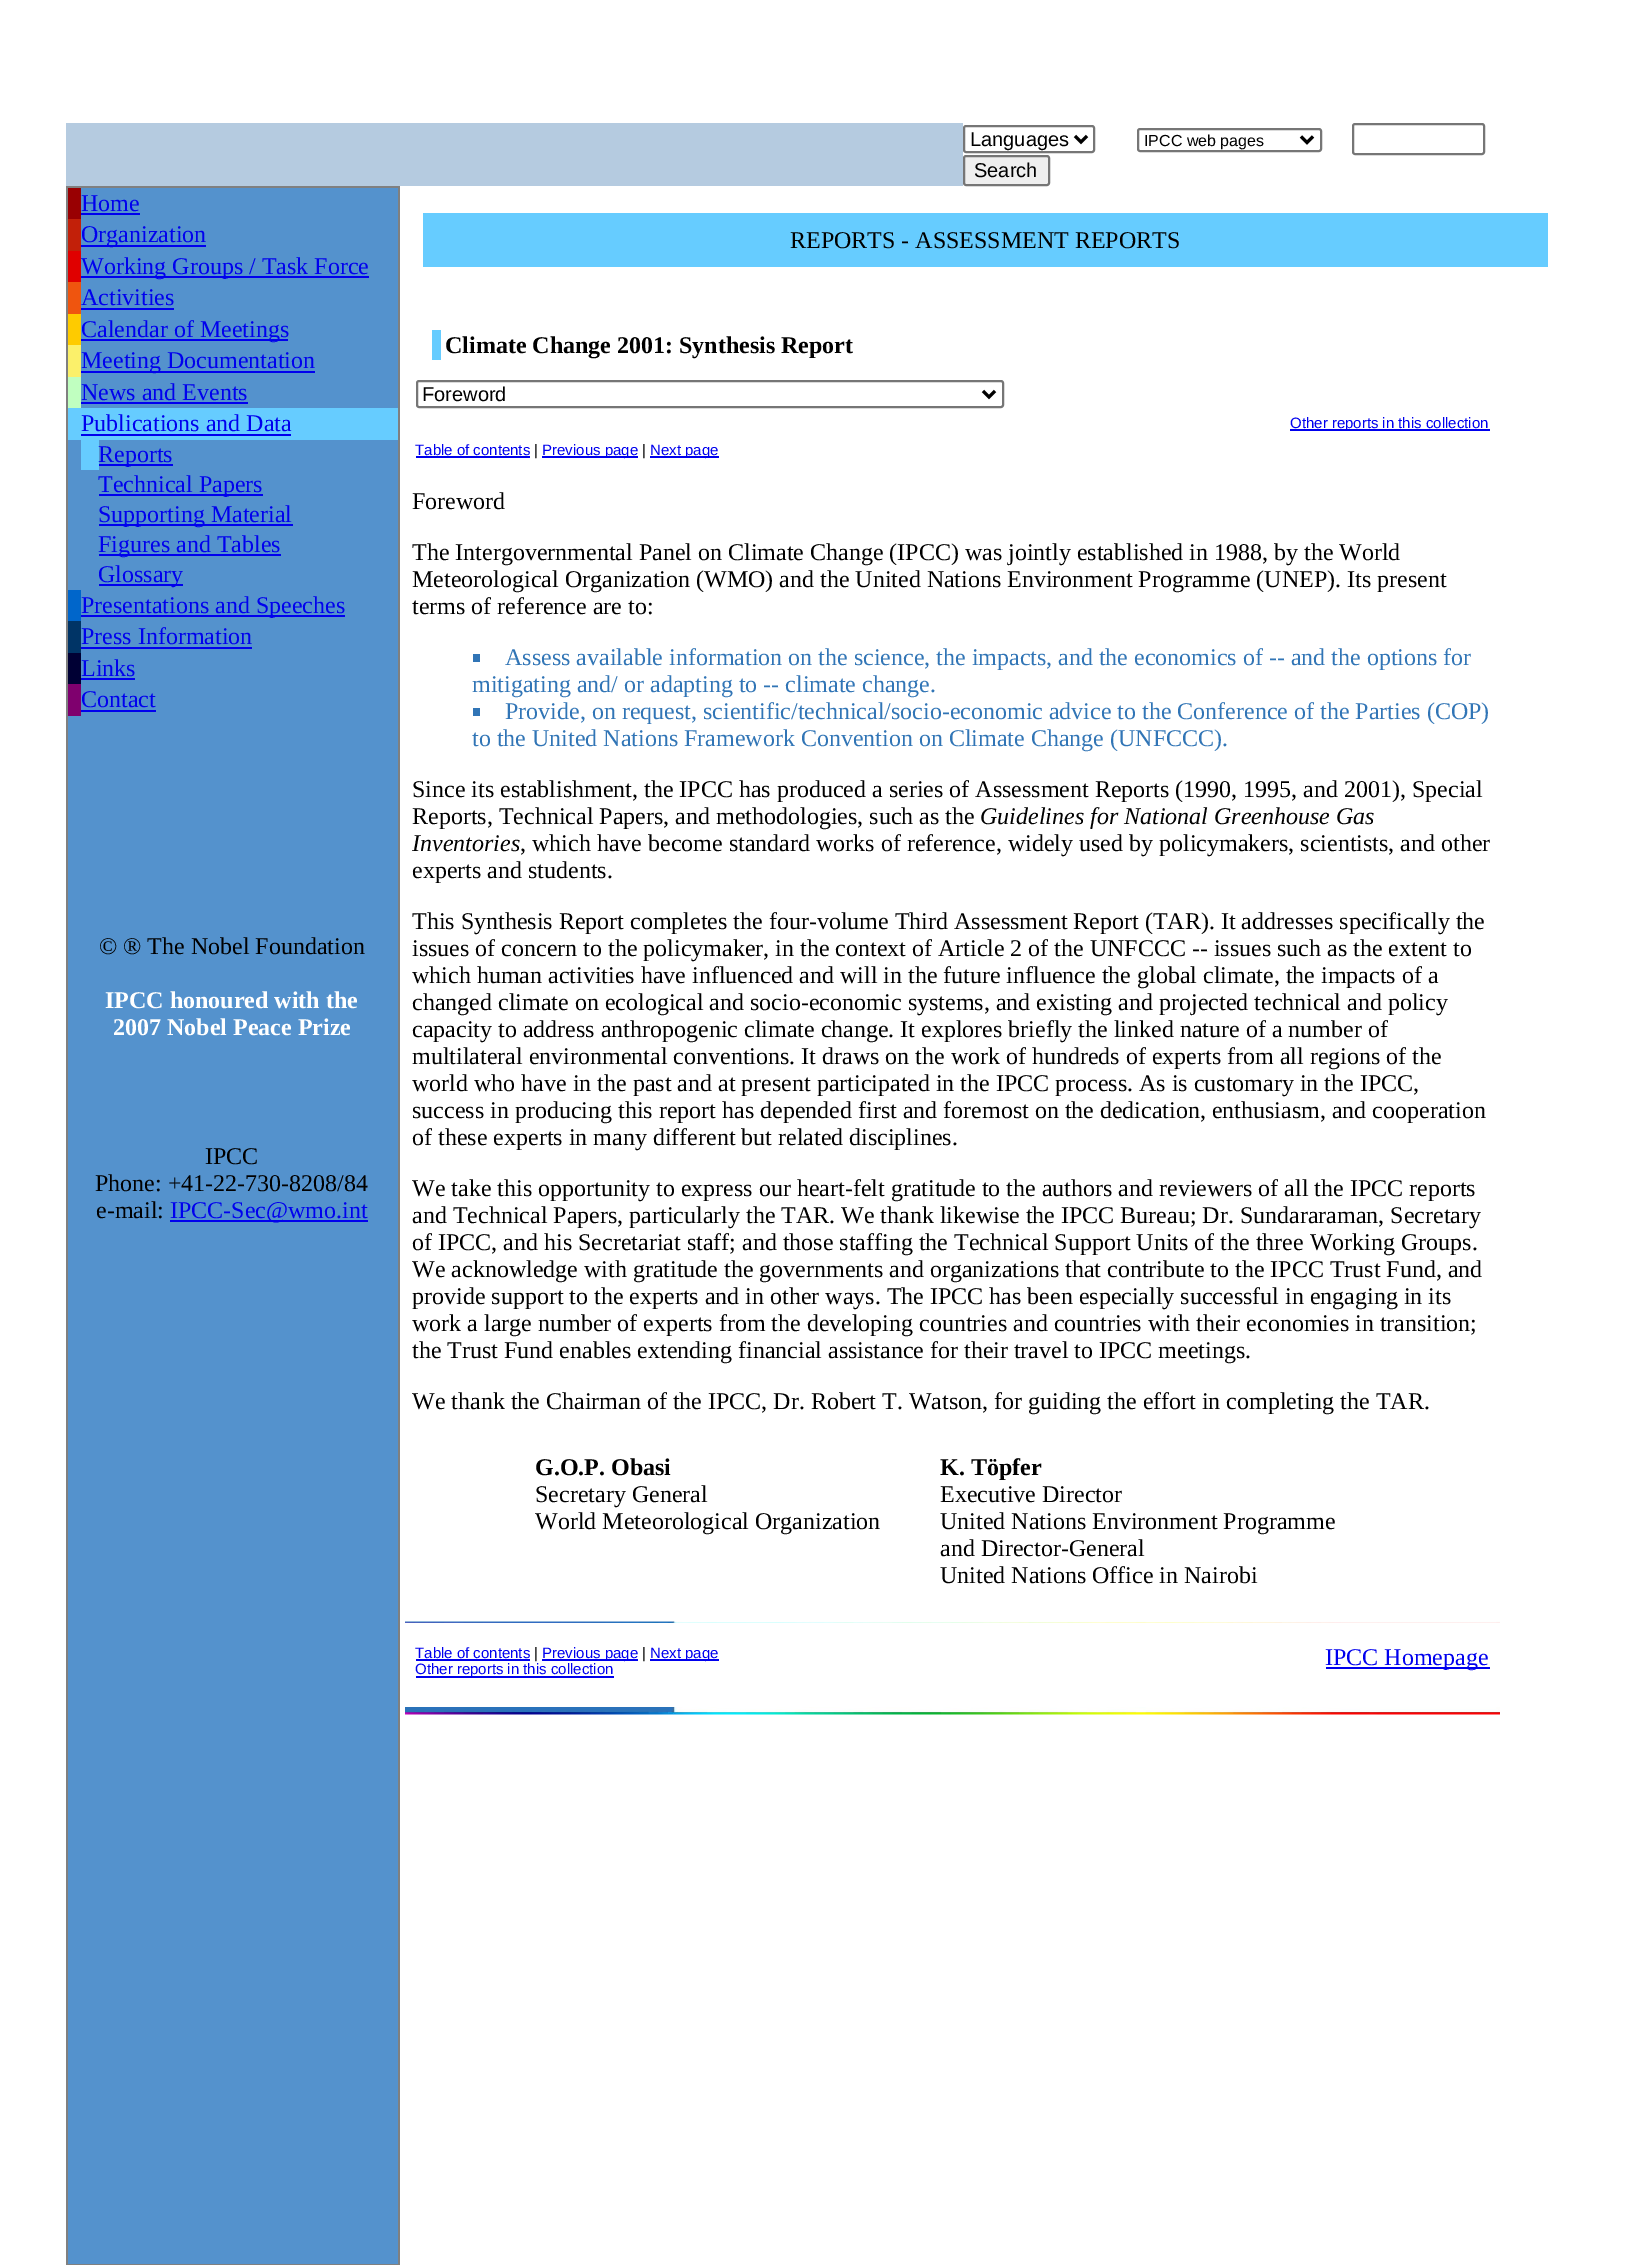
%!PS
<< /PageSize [1633 2265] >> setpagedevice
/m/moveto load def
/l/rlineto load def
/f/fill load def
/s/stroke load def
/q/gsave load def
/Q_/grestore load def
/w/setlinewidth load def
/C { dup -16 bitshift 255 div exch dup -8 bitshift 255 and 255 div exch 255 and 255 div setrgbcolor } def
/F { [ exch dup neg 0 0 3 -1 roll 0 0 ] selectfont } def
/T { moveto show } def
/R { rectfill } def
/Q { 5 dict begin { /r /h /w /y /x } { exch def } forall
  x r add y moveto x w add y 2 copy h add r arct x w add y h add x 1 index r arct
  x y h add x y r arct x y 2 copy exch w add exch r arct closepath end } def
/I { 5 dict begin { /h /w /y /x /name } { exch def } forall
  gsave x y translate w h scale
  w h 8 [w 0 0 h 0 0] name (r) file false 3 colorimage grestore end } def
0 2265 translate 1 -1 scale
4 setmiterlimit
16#FFFFFF C
0 0 1633 2265 R
16#B5CBE0 C
66 123 897 63 R
16#767676 C
2 w
964 126 130 26 2 Q s
16#000000 C
3 w
1075 136 m 6 6 l 6 -6 l s
/LiberationSans-Regular 20 F
(Languages) 970 146 T
16#767676 C
2 w
1138 129 183 22 2 Q s
16#000000 C
3 w
1301 136.5 m 6 6 l 6 -6 l s
/LiberationSans-Regular 16 F
(IPCC web pages) 1144 146 T
16#767676 C
2 w
1353 124 131 30 2 Q s
16#EFEFEF C
964 156 85 29 2 Q q f Q_
16#767676 C
s
/LiberationSans-Regular 20 F
16#000000 C
(Search) 974 177 T
16#5492CD C
68 188 330 2076 R
16#808080 C
66 186 333 2 R
398 186 2 2079 R
66 2264 333 1 R
66 186 2 2079 R
16#990002 C
68 188 13 31 R
/LiberationSerif-Regular 24 F
16#0000EE C
(Home) 81 211 T
81 213 59 2 R
16#C22009 C
68 219 13 32 R
16#0000EE C
81 245 125 2 R
(Organization) 81 242 T
16#E00000 C
68 251 13 31 R
16#0000EE C
81 276 288 2 R
(Working Groups / Task Force) 81 274 T
16#EF550F C
68 282 13 32 R
16#0000EE C
(Activities) 81 305 T
81 308 93 2 R
16#FECB00 C
68 314 13 31 R
16#0000EE C
81 339 207 2 R
(Calendar of Meetings) 81 337 T
16#FBF06A C
68 345 13 32 R
16#0000EE C
81 371 234 2 R
(Meeting Documentation) 81 368 T
16#C0FFC0 C
68 377 13 31 R
16#0000EE C
(News and Events) 81 400 T
81 402 167 2 R
16#66CCFF C
68 408 330 32 R
16#0000EE C
(Publications and Data) 81 431 T
81 434 210 2 R
16#66CCFF C
81 440 18 30 R
16#0000EE C
99 464 74 2 R
(Reports) 98 462 T
99 494 164 2 R
(Technical Papers) 98 492 T
99 524 194 2 R
(Supporting Material) 98 522 T
99 554 182 2 R
(Figures and Tables) 98 552 T
99 584 84 2 R
(Glossary) 98 582 T
16#0066CB C
68 590 13 31 R
16#0000EE C
81 615 264 2 R
(Presentations and Speeches) 81 613 T
16#003466 C
68 621 13 32 R
16#0000EE C
(Press Information) 81 644 T
81 647 171 2 R
16#000034 C
68 653 13 31 R
16#0000EE C
(Links) 81 676 T
81 678 54 2 R
16#7F006E C
68 684 13 32 R
16#0000EE C
(Contact) 81 707 T
81 710 75 2 R
16#000000 C
(© ® The Nobel Foundation) 99 954 T
/LiberationSerif-Bold 24 F
16#FFFFFF C
(IPCC honoured with the) 105 1008 T
(2007 Nobel Peace Prize) 113 1035 T
/LiberationSerif-Regular 24 F
16#000000 C
(IPCC) 205 1164 T
(Phone: +41-22-730-8208/84) 95 1191 T
(e-mail:) 96 1218 T
16#0000EE C
170 1220 198 2 R
(IPCC-Sec@wmo.int) 170 1218 T
16#66CCFF C
423 213 1125 54 R
16#000000 C
(REPORTS - ASSESSMENT REPORTS) 790 248 T
16#66CCFF C
432 330 9 30 R
/LiberationSerif-Bold 24 F
16#000000 C
(Climate Change 2001: Synthesis Report) 445 353 T
16#767676 C
417 381 586 26 2 Q s
16#000000 C
3 w
983 391 m 6 6 l 6 -6 l s
/LiberationSans-Regular 20 F
(Foreword) 422 401 T
16#0000EE C
1290 429 200 2 R
/LiberationSans-Regular 15 F
(Other reports in this collection) 1290 428 T
(Table of contents) 415 455 T
416 456 114 2 R
16#000000 C
(|) 534 455 T
16#0000EE C
542 456 96 2 R
(Previous page) 542 455 T
16#000000 C
(|) 642 455 T
16#0000EE C
650 456 69 2 R
(Next page) 650 455 T
/LiberationSerif-Regular 24 F
16#000000 C
(Foreword) 412 509 T
(The Intergovernmental Panel on Climate Change \(IPCC\) was jointly established in 1988, by the World) 412 560 T
(Meteorological Organization \(WMO\) and the United Nations Environment Programme \(UNEP\). Its present) 412 587 T
(terms of reference are to:) 412 614 T
16#3175B6 C
473 654 7 8 R
(Assess available information on the science, the impacts, and the economics of -- and the options for) 505 665 T
(mitigating and/ or adapting to -- climate change.) 472 692 T
473 708 7 8 R
(Provide, on request, scientific/technical/socio-economic advice to the Conference of the Parties \(COP\)) 505 719 T
(to the United Nations Framework Convention on Climate Change \(UNFCCC\).) 472 746 T
16#000000 C
(Since its establishment, the IPCC has produced a series of Assessment Reports \(1990, 1995, and 2001\), Special) 412 797 T
(Reports, Technical Papers, and methodologies, such as the) 412 824 T
/LiberationSerif-Italic 24 F
(Guidelines for National Greenhouse Gas) 980 824 T
(Inventories) 412 851 T
/LiberationSerif-Regular 24 F
(, which have become standard works of reference, widely used by policymakers, scientists, and other) 520 851 T
(experts and students.) 412 878 T
(This Synthesis Report completes the four-volume Third Assessment Report \(TAR\). It addresses specifically the) 412 929 T
(issues of concern to the policymaker, in the context of Article 2 of the UNFCCC -- issues such as the extent to) 412 956 T
(which human activities have influenced and will in the future influence the global climate, the impacts of a) 412 983 T
(changed climate on ecological and socio-economic systems, and existing and projected technical and policy) 412 1010 T
(capacity to address anthropogenic climate change. It explores briefly the linked nature of a number of) 412 1037 T
(multilateral environmental conventions. It draws on the work of hundreds of experts from all regions of the) 412 1064 T
(world who have in the past and at present participated in the IPCC process. As is customary in the IPCC,) 412 1091 T
(success in producing this report has depended first and foremost on the dedication, enthusiasm, and cooperation) 412 1118 T
(of these experts in many different but related disciplines.) 412 1145 T
(We take this opportunity to express our heart-felt gratitude to the authors and reviewers of all the IPCC reports) 412 1196 T
(and Technical Papers, particularly the TAR. We thank likewise the IPCC Bureau; Dr. Sundararaman, Secretary) 412 1223 T
(of IPCC, and his Secretariat staff; and those staffing the Technical Support Units of the three Working Groups.) 412 1250 T
(We acknowledge with gratitude the governments and organizations that contribute to the IPCC Trust Fund, and) 412 1277 T
(provide support to the experts and in other ways. The IPCC has been especially successful in engaging in its) 412 1304 T
(work a large number of experts from the developing countries and countries with their economies in transition;) 412 1331 T
(the Trust Fund enables extending financial assistance for their travel to IPCC meetings.) 412 1358 T
(We thank the Chairman of the IPCC, Dr. Robert T. Watson, for guiding the effort in completing the TAR.) 412 1409 T
/LiberationSerif-Bold 24 F
(G.O.P. Obasi) 535 1475 T
/LiberationSerif-Regular 24 F
(Secretary General) 535 1502 T
(World Meteorological Organization) 535 1529 T
/LiberationSerif-Bold 24 F
(K. Töpfer) 940 1475 T
/LiberationSerif-Regular 24 F
(Executive Director) 940 1502 T
(United Nations Environment Programme) 940 1529 T
(and Director-General) 940 1556 T
(United Nations Office in Nairobi) 940 1583 T
(1.rgb) 405 1621 1095 2 I
/LiberationSans-Regular 15 F
16#0000EE C
(Table of contents) 415 1658 T
416 1659 114 2 R
16#000000 C
(|) 534 1658 T
16#0000EE C
542 1659 96 2 R
(Previous page) 542 1658 T
16#000000 C
(|) 642 1658 T
16#0000EE C
650 1659 69 2 R
(Next page) 650 1658 T
416 1676 198 2 R
(Other reports in this collection) 415 1674 T
1326 1667 164 2 R
/LiberationSerif-Regular 24 F
(IPCC Homepage) 1325 1665 T
(2.rgb) 405 1707 1095 8 I
showpage
